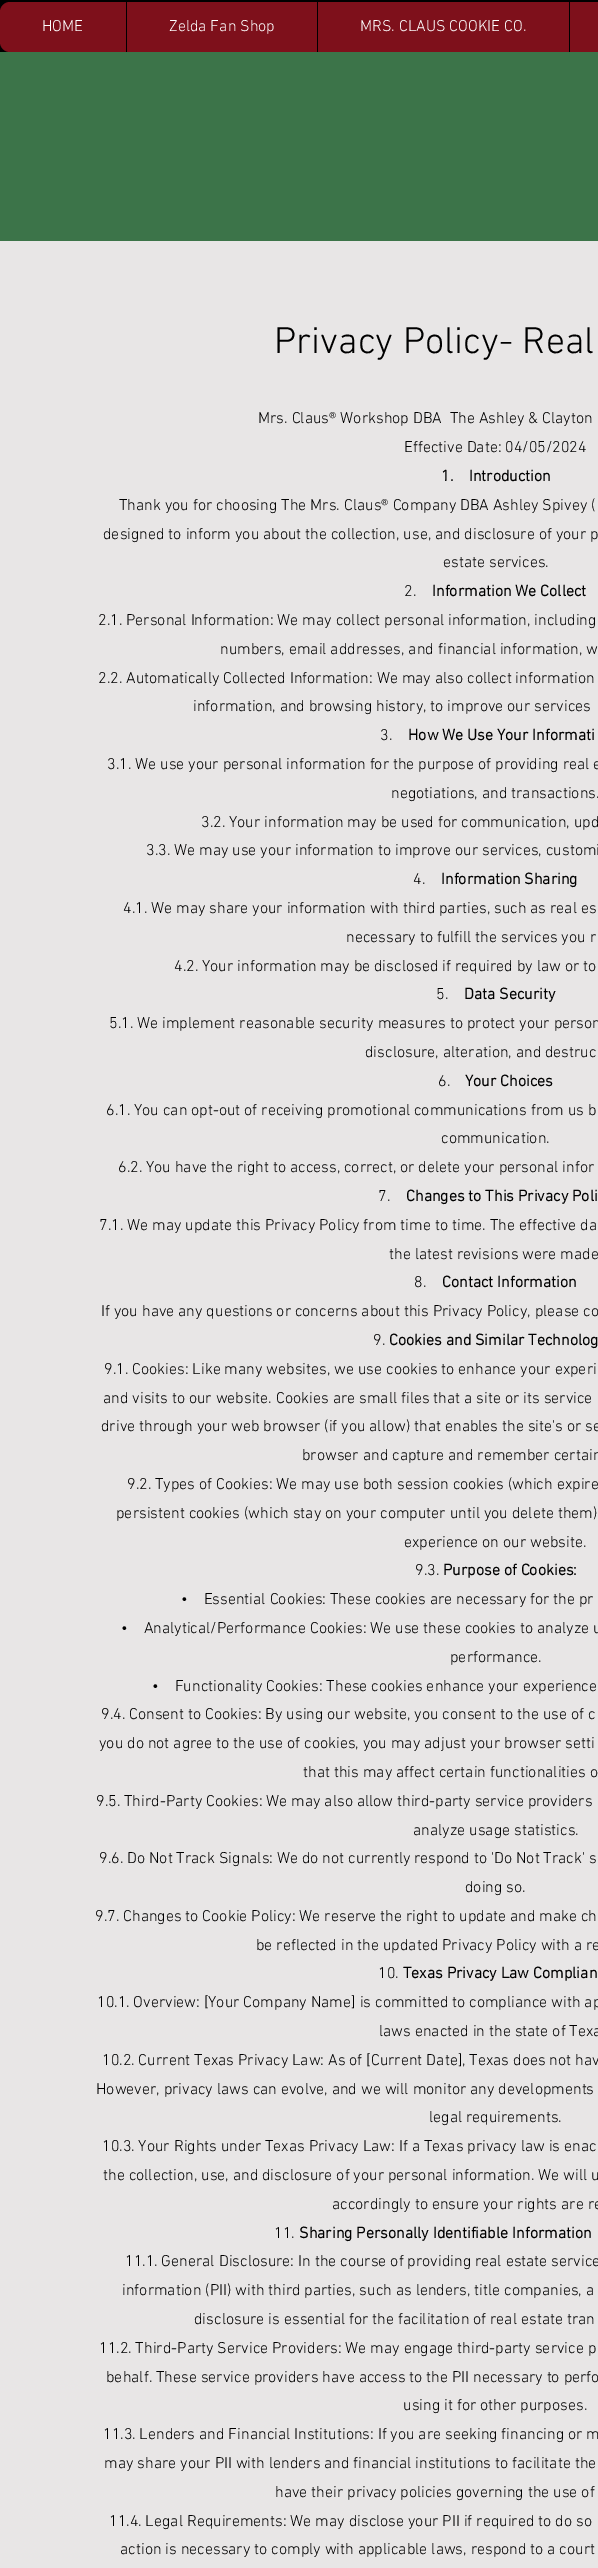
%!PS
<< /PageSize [598 2568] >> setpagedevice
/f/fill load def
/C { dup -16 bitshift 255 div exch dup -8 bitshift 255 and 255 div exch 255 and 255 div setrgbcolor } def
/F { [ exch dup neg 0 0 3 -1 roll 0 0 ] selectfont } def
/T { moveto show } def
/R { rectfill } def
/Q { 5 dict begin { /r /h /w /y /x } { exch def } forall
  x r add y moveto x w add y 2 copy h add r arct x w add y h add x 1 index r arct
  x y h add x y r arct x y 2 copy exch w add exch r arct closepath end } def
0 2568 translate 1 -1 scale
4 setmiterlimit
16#000000 C
0 0 598 2568 R
16#7E101B C
0 2 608 50 10 Q f
/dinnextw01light-Light 16 F
16#FFFFFF C
(HOME) 42 31 T
16#000000 C
126 2 1 50 R
16#FFFFFF C
(Zelda Fan Shop) 169 31 T
16#000000 C
317 2 1 50 R
16#FFFFFF C
(MRS. CLAUS COOKIE CO.) 360 31 T
16#000000 C
569 2 1 50 R
16#3C7449 C
0 52 598 189 R
16#E8E6E6 C
0 241 598 2327 R
/dinnextw01light-Light 38 F
16#000000 C
(Privacy Policy- Real) 274 353 T
/dinnextw01light-Light 16 F
(Mrs. Claus® Workshop DBA  The Ashley & Clayton) 258 423 T
(Effective Date: 04/05/2024) 404 452 T
/dinnextw01light-Bold 16 F
(1.    Introduction) 441 481 T
/dinnextw01light-Light 16 F
(Thank you for choosing The Mrs. Claus® Company DBA Ashley Spivey \() 119 510 T
(designed to inform you about the collection, use, and disclosure of your p) 103 539 T
(estate services.) 443 567 T
(2.) 404 596 T
/dinnextw01light-Bold 16 F
(Information We Collect) 432 596 T
/dinnextw01light-Light 16 F
(2.1. Personal Information: We may collect personal information, including) 98 625 T
(numbers, email addresses, and financial information, w) 220 654 T
(2.2. Automatically Collected Information: We may also collect information) 98 683 T
(information, and browsing history, to improve our services) 193 711 T
(3.) 380 740 T
/dinnextw01light-Bold 16 F
(How We Use Your Informati) 408 740 T
/dinnextw01light-Light 16 F
(3.1. We use your personal information for the purpose of providing real e) 107 769 T
(negotiations, and transactions.) 391 798 T
(3.2. Your information may be used for communication, upd) 201 827 T
(3.3. We may use your information to improve our services, customi) 146 855 T
(4.) 413 884 T
/dinnextw01light-Bold 16 F
(Information Sharing) 441 884 T
/dinnextw01light-Light 16 F
(4.1. We may share your information with third parties, such as real es) 123 913 T
(necessary to fulfill the services you r) 346 942 T
(4.2. Your information may be disclosed if required by law or to) 174 971 T
(5.) 436 999 T
/dinnextw01light-Bold 16 F
(Data Security) 464 999 T
/dinnextw01light-Light 16 F
(5.1. We implement reasonable security measures to protect your person) 109 1028 T
(disclosure, alteration, and destruc) 365 1057 T
(6.) 438 1086 T
/dinnextw01light-Bold 16 F
(Your Choices) 465 1086 T
/dinnextw01light-Light 16 F
(6.1. You can opt-out of receiving promotional communications from us b) 106 1115 T
(communication.) 441 1143 T
(6.2. You have the right to access, correct, or delete your personal infor) 118 1172 T
(7.) 378 1201 T
/dinnextw01light-Bold 16 F
(Changes to This Privacy Poli) 406 1201 T
/dinnextw01light-Light 16 F
(7.1. We may update this Privacy Policy from time to time. The effective da) 99 1230 T
(the latest revisions were made) 389 1259 T
(8.) 414 1287 T
/dinnextw01light-Bold 16 F
(Contact Information) 442 1287 T
/dinnextw01light-Light 16 F
(If you have any questions or concerns about this Privacy Policy, please co) 101 1316 T
(9.) 373 1345 T
/dinnextw01light-Bold 16 F
(Cookies and Similar Technolog) 389 1345 T
/dinnextw01light-Light 16 F
(9.1. Cookies: Like many websites, we use cookies to enhance your experi) 104 1374 T
(and visits to our website. Cookies are small files that a site or its service) 103 1403 T
(drive through your web browser \(if you allow\) that enables the site's or se) 101 1431 T
(browser and capture and remember certain) 302 1460 T
(9.2. Types of Cookies: We may use both session cookies \(which expire) 127 1489 T
(persistent cookies \(which stay on your computer until you delete them\)) 116 1518 T
(experience on our website.) 404 1547 T
(9.3.) 415 1575 T
/dinnextw01light-Bold 16 F
(Purpose of Cookies:) 443 1575 T
/dinnextw01light-Light 16 F
(•    Essential Cookies: These cookies are necessary for the pr) 181 1604 T
(•    Analytical/Performance Cookies: We use these cookies to analyze u) 121 1633 T
(performance.) 450 1662 T
(•    Functionality Cookies: These cookies enhance your experience) 152 1691 T
(9.4. Consent to Cookies: By using our website, you consent to the use of c) 101 1719 T
(you do not agree to the use of cookies, you may adjust your browser setti) 99 1748 T
(that this may affect certain functionalities o) 303 1777 T
(9.5. Third-Party Cookies: We may also allow third-party service providers) 96 1806 T
(analyze usage statistics.) 413 1835 T
(9.6. Do Not Track Signals: We do not currently respond to 'Do Not Track' s) 99 1863 T
(doing so.) 465 1892 T
(9.7. Changes to Cookie Policy: We reserve the right to update and make ch) 95 1921 T
(be reflected in the updated Privacy Policy with a re) 256 1950 T
(10.) 378 1978 T
/dinnextw01light-Bold 16 F
(Texas Privacy Law Complian) 403 1978 T
/dinnextw01light-Light 16 F
(10.1. Overview: [Your Company Name] is committed to compliance with ap) 97 2007 T
(laws enacted in the state of Texa) 379 2036 T
(10.2. Current Texas Privacy Law: As of [Current Date], Texas does not hav) 102 2065 T
(However, privacy laws can evolve, and we will monitor any developments) 96 2094 T
(legal requirements.) 429 2122 T
(10.3. Your Rights under Texas Privacy Law: If a Texas privacy law is enac) 102 2151 T
(the collection, use, and disclosure of your personal information. We will u) 103 2180 T
(accordingly to ensure your rights are re) 332 2209 T
(11.) 274 2238 T
/dinnextw01light-Bold 16 F
(Sharing Personally Identifiable Information) 299 2238 T
/dinnextw01light-Light 16 F
(11.1. General Disclosure: In the course of providing real estate service) 125 2266 T
(information \(PII\) with third parties, such as lenders, title companies, a) 122 2295 T
(disclosure is essential for the facilitation of real estate tran) 194 2324 T
(11.2. Third-Party Service Providers: We may engage third-party service p) 99 2353 T
(behalf. These service providers have access to the PII necessary to perfo) 106 2382 T
(using it for other purposes.) 403 2410 T
(11.3. Lenders and Financial Institutions: If you are seeking financing or m) 103 2439 T
(may share your PII with lenders and financial institutions to facilitate the) 104 2468 T
(have their privacy policies governing the use of) 275 2497 T
(11.4. Legal Requirements: We may disclose your PII if required to do so) 109 2526 T
(action is necessary to comply with applicable laws, respond to a court) 120 2554 T
showpage
